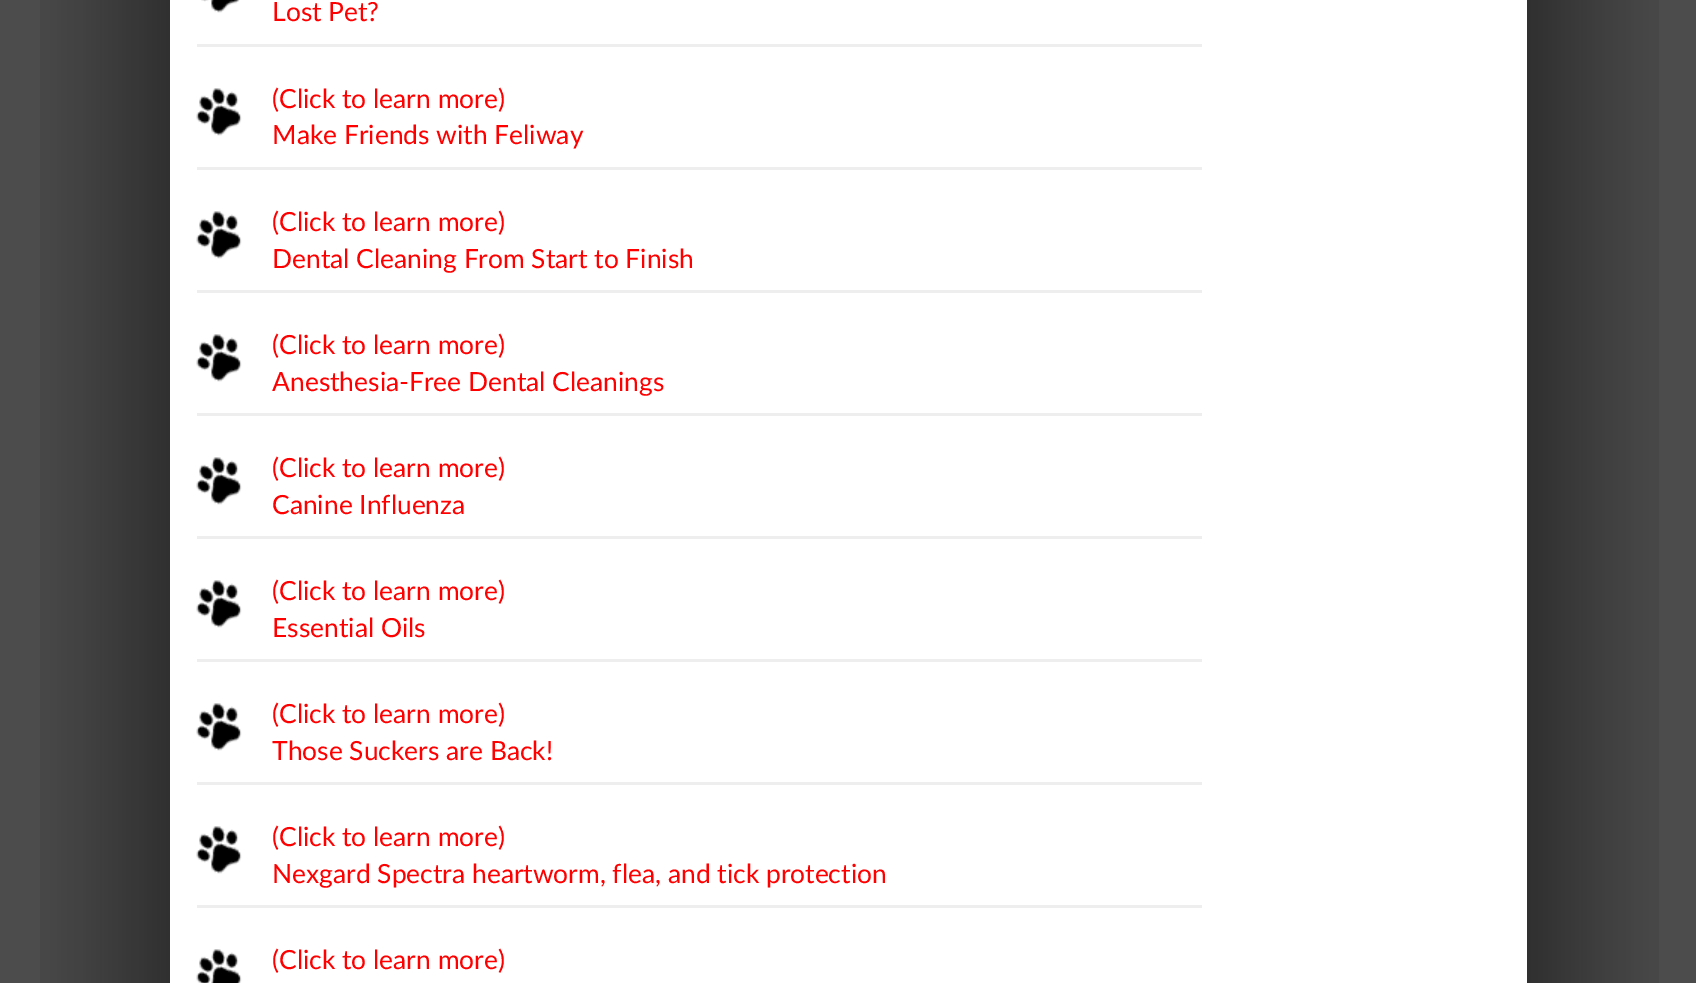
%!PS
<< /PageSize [1696 983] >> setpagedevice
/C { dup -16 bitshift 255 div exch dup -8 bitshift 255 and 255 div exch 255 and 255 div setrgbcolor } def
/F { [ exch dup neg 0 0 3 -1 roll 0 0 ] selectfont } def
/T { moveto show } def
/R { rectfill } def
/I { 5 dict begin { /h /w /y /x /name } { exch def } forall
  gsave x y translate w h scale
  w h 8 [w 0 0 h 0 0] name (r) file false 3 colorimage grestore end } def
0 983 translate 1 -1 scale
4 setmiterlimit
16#4C4C4C C
0 0 1696 983 R
(1.rgb) 40 0 1619 983 I
16#FFFFFF C
170 0 1357 983 R
(2.rgb) 201 0 39 13 I
16#EEEEEE C
197 44 1005 3 R
/Lato-Regular 26.4 F
16#FF0000 C
(Lost Pet?) 272 21 T
(3.rgb) 196 88 46 48 I
16#EEEEEE C
197 167 1005 3 R
16#FF0000 C
(\(Click to learn more\)) 272 108 T
(Make Friends with Feliway) 272 144 T
(3.rgb) 196 211 46 48 I
16#EEEEEE C
197 290 1005 3 R
16#FF0000 C
(\(Click to learn more\)) 272 231 T
(Dental Cleaning From Start to Finish) 272 268 T
(3.rgb) 196 334 46 48 I
16#EEEEEE C
197 413 1005 3 R
16#FF0000 C
(\(Click to learn more\)) 272 354 T
(Anesthesia-Free Dental Cleanings) 272 391 T
(3.rgb) 196 457 46 48 I
16#EEEEEE C
197 536 1005 3 R
16#FF0000 C
(\(Click to learn more\)) 272 477 T
(Canine Influenza) 272 514 T
(3.rgb) 196 580 46 48 I
16#EEEEEE C
197 659 1005 3 R
16#FF0000 C
(\(Click to learn more\)) 272 600 T
(Essential Oils) 272 637 T
(3.rgb) 196 703 46 48 I
16#EEEEEE C
197 782 1005 3 R
16#FF0000 C
(\(Click to learn more\)) 272 723 T
(Those Suckers are Back!) 272 760 T
(3.rgb) 196 826 46 48 I
16#EEEEEE C
197 905 1005 3 R
16#FF0000 C
(\(Click to learn more\)) 272 846 T
(Nexgard Spectra heartworm, flea, and tick protection) 272 883 T
(4.rgb) 196 949 46 34 I
(\(Click to learn more\)) 272 969 T
showpage
